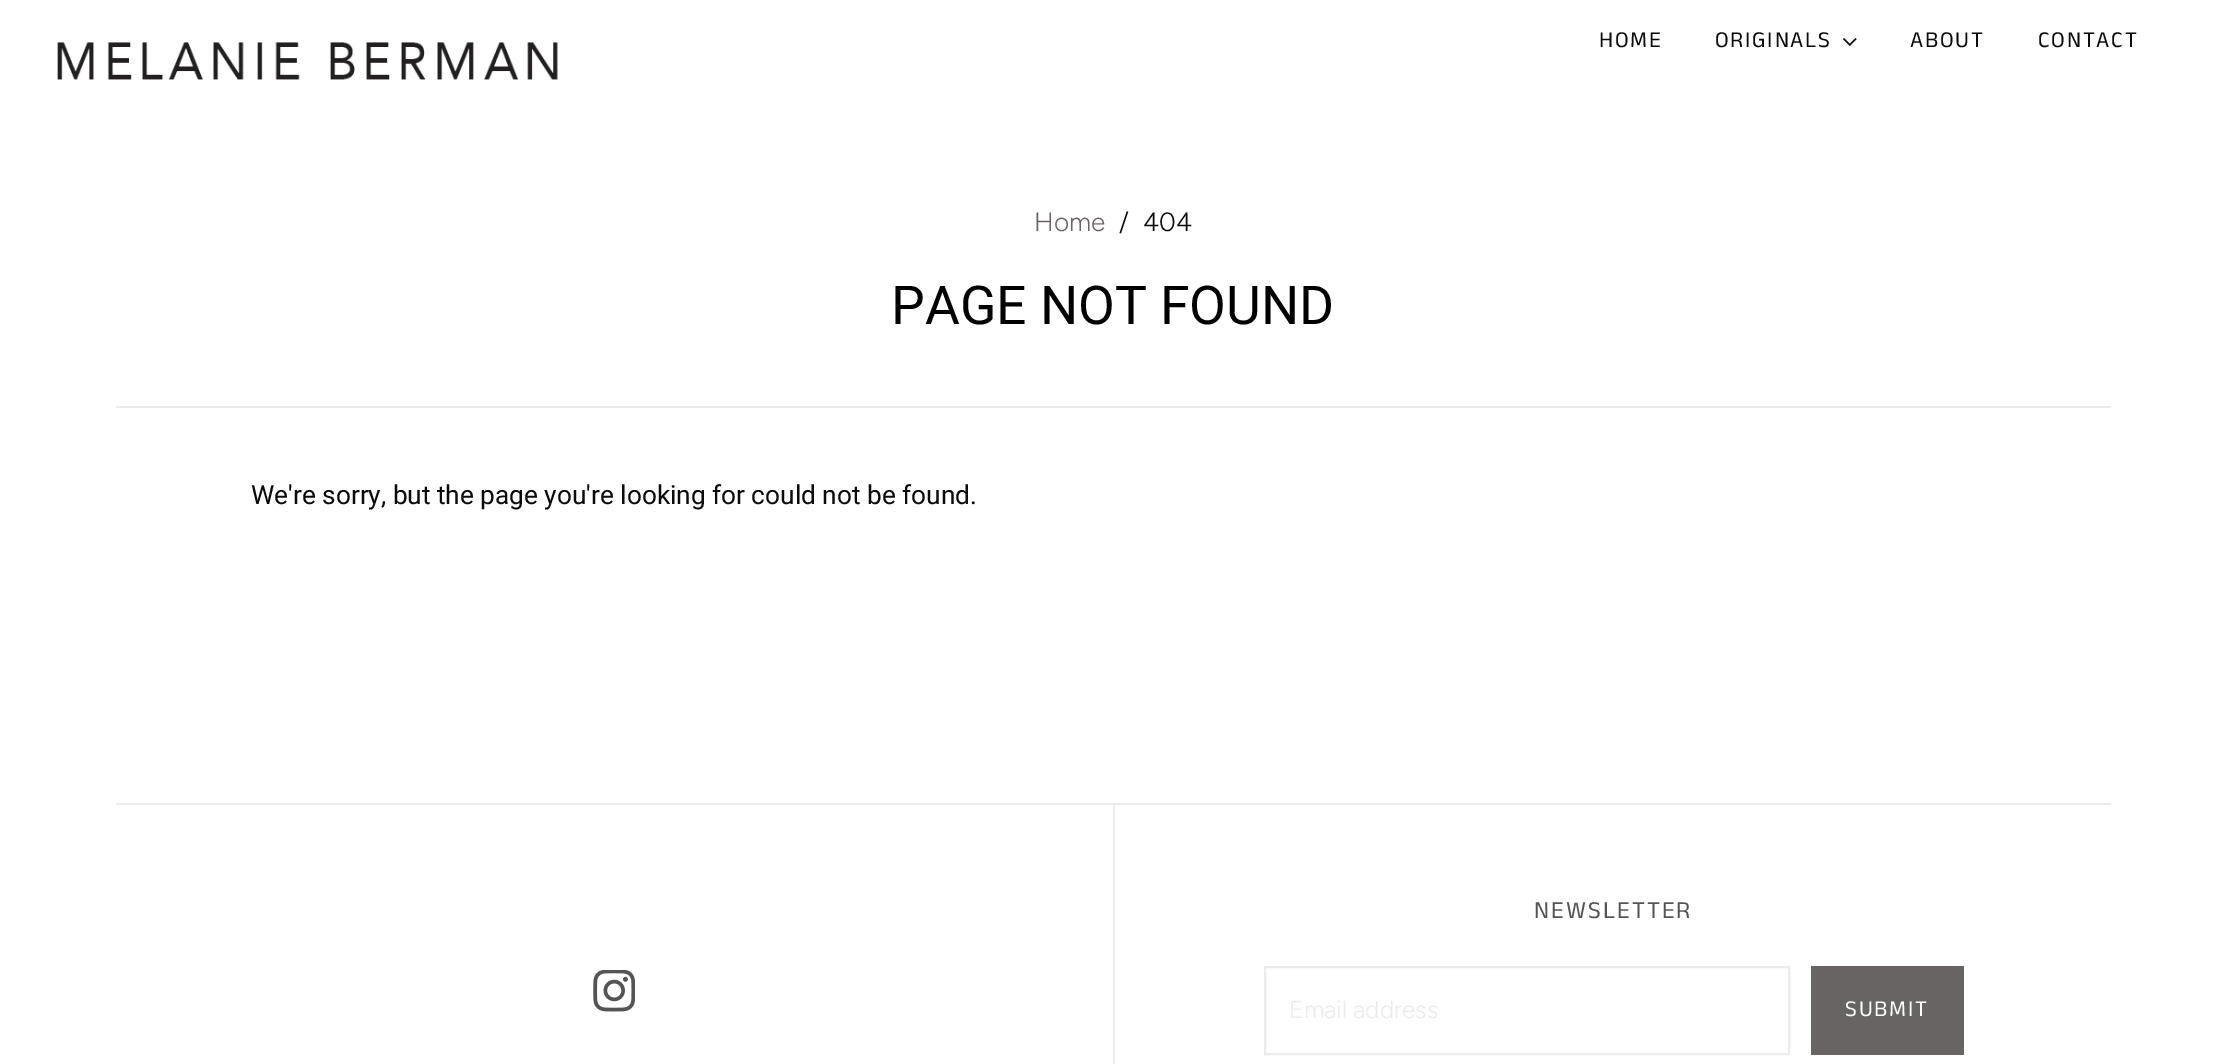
%!PS
<< /PageSize [2226 1064] >> setpagedevice
/m/moveto load def
/w/setlinewidth load def
/C { dup -16 bitshift 255 div exch dup -8 bitshift 255 and 255 div exch 255 and 255 div setrgbcolor } def
/F { [ exch dup neg 0 0 3 -1 roll 0 0 ] selectfont } def
/T { moveto show } def
/R { rectfill } def
/I { 5 dict begin { /h /w /y /x /name } { exch def } forall
  gsave x y translate w h scale
  w h 8 [w 0 0 h 0 0] name (r) file false 3 colorimage grestore end } def
0 1064 translate 1 -1 scale
4 setmiterlimit
16#FFFFFF C
0 0 2226 1064 R
/AnekTamil-Regular 22.75 F
16#0B0B0B C
1599 47 m 1.75 0 (HOME) ashow
1715 47 m 1.75 0 (ORIGINALS) ashow
(1.rgb) 1843 38 14 8 I
1910 47 m 1.75 0 (ABOUT) ashow
2038 47 m 1.75 0 (CONTACT) ashow
(2.rgb) 57 42 501 38 I
/Figtree-Light 26.25 F
16#696464 C
(Home) 1034 231 T
16#0B0B0B C
(/) 1119 231 T
(404) 1143 231 T
16#EBEBEB C
116 406 1995 2 R
/Roboto-Regular 53.5 F
16#000000 C
(PAGE NOT FOUND) 891 324 T
/Roboto-Regular 26.25 F
16#0B0B0B C
(We're sorry, but the page you're looking for could not be found.) 251 504 T
16#EBEBEB C
116 803 1995 2 R
(3.rgb) 593 970 42 42 I
1113 805 2 259 R
/AnekTamil-Regular 24.5 F
16#545454 C
1534 918 m 2 0 (NEWSLETTER) ashow
16#EBEBEB C
2 w
1265 967 524 87 rectstroke
/Figtree-Light 24.5 F
(Email address) 1289 1018 T
16#696464 C
1811 966 153 89 R
/AnekTamil-Regular 22.75 F
16#FFFFFF C
1845 1016 m 1.75 0 (SUBMIT) ashow
showpage
